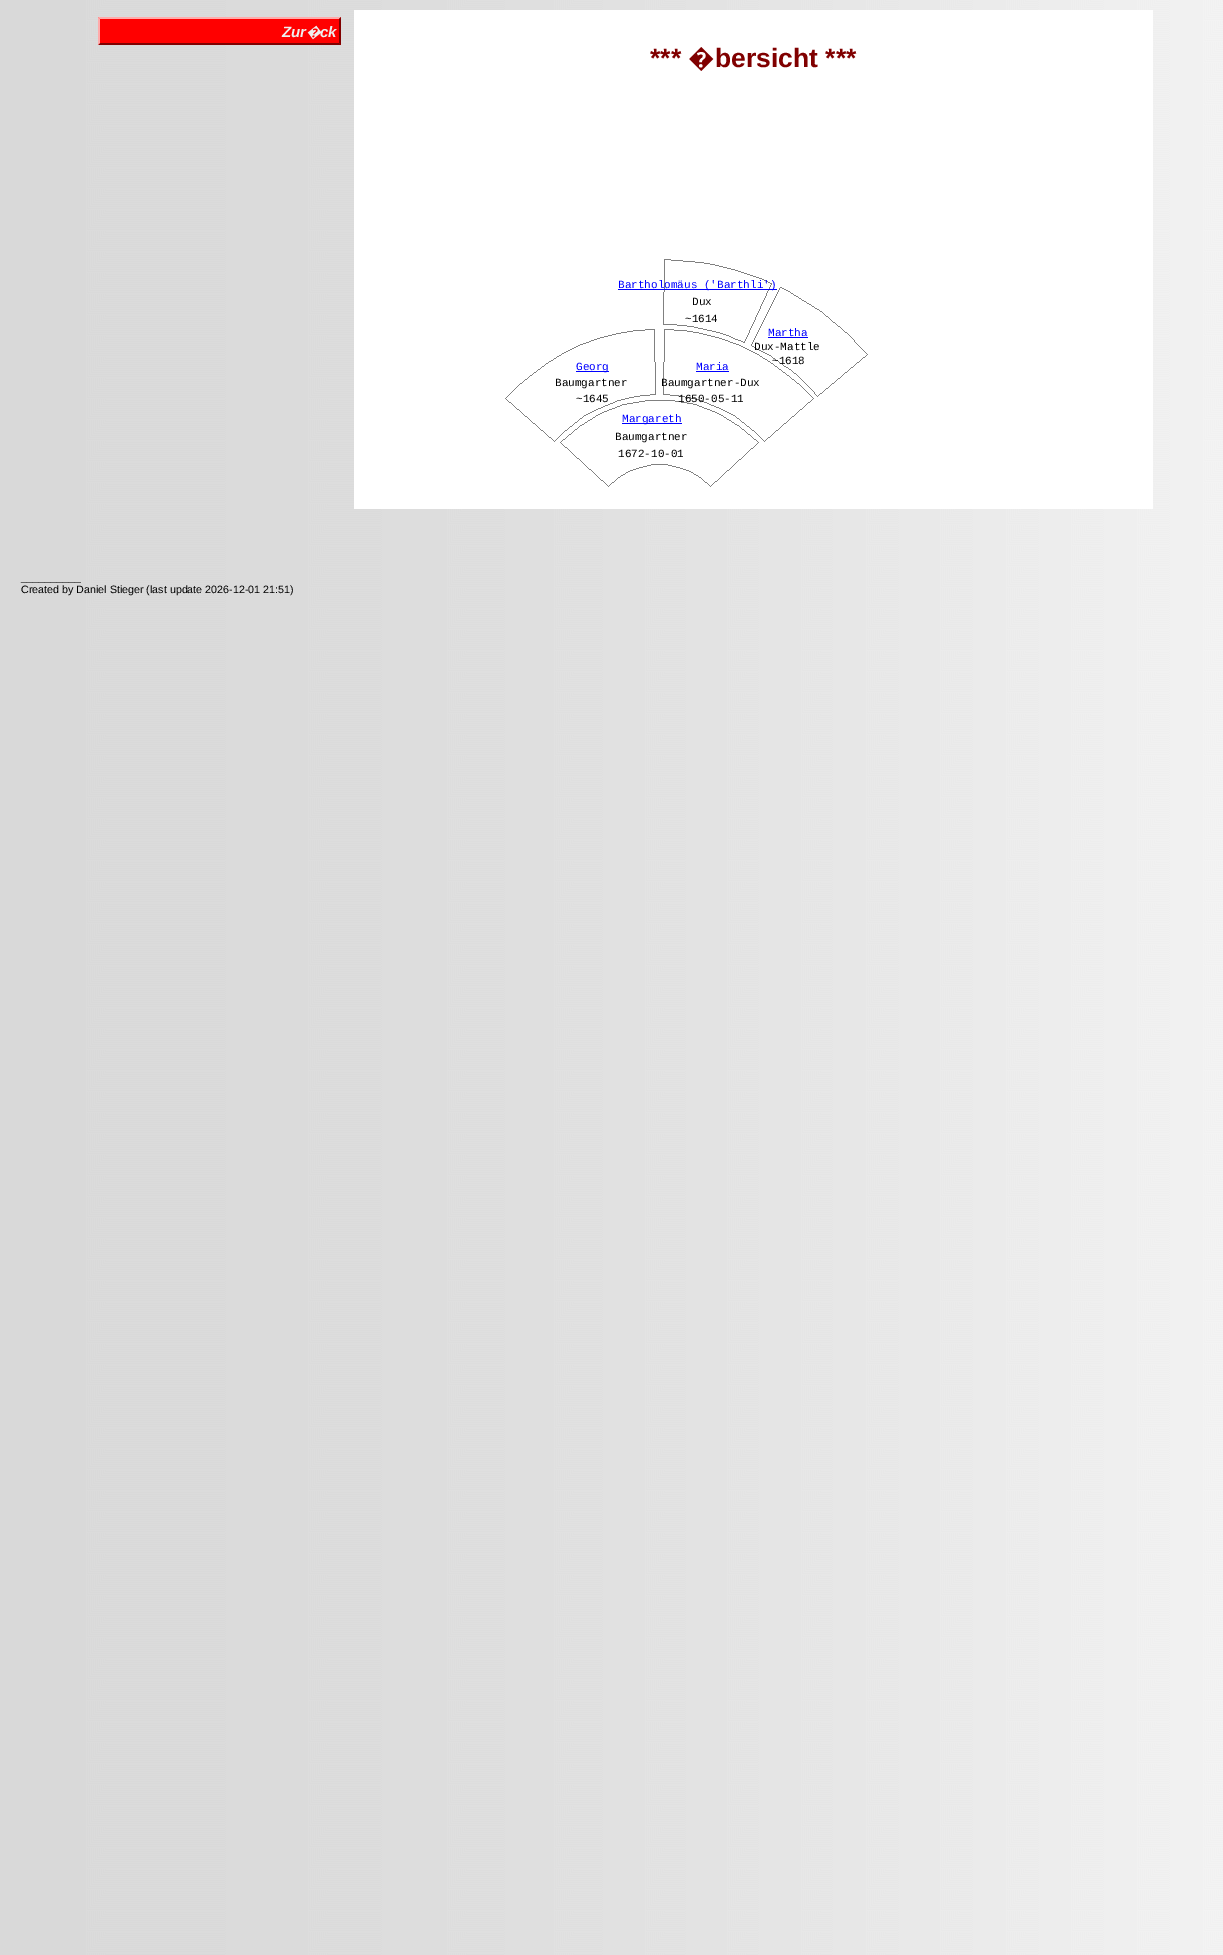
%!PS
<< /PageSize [1223 1955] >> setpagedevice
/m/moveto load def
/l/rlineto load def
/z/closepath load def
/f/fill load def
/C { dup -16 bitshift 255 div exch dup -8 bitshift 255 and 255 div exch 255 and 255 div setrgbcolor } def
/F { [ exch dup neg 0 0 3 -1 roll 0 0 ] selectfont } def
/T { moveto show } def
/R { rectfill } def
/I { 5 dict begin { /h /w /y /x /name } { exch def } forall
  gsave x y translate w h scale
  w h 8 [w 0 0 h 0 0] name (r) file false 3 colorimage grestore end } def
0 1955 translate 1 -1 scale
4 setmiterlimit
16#FFFFFF C
0 0 1223 1955 R
(1.rgb) 0 0 1223 1955 I
16#FF0000 C
98 17 243 28 R
16#FFAAAA C
98 17 m 243 0 l -2 2 l -239 0 l z f
16#800000 C
341 17 m 0 28 l -2 -2 l 0 -24 l z f
341 45 m -243 0 l 2 -2 l 239 0 l z f
16#FFAAAA C
98 45 m 0 -28 l 2 2 l 0 24 l z f
/LiberationSans-BoldItalic 15 F
16#EEEEEE C
(Zur) 282 37 T
/NotoSans-BoldItalic 15 F
(�) 306 37 T
/LiberationSans-BoldItalic 15 F
(ck) 320 37 T
16#FFFFFF C
354 10 799 499 R
/LiberationSans-Bold 26.5 F
16#800000 C
(***) 650 67 T
/NotoSans-Black 26.5 F
(�) 688 67 T
/LiberationSans-Bold 26.5 F
(bersicht ***) 715 67 T
16#808080 C
664 259 7 1 R
664 259 1 33 R
671 260 12 1 R
683 261 12 1 R
695 262 9 1 R
704 263 6 1 R
710 264 5 1 R
715 265 4 1 R
719 266 4 1 R
723 267 4 1 R
727 268 4 1 R
731 269 4 1 R
735 270 3 1 R
738 271 3 1 R
741 272 3 1 R
744 273 3 1 R
747 274 3 1 R
750 275 3 1 R
753 276 3 1 R
756 277 3 1 R
759 278 3 1 R
762 279 2 1 R
768 289 1 2 R
16#0000FF C
618 289 159 1 R
16#808080 C
764 280 2 1 R
766 281 2 1 R
768 282 2 1 R
771 283 1 2 R
770 283 2 1 R
770 285 1 2 R
769 287 1 2 R
/LiberationMono-Regular 11 F
16#0000FF C
(Bartholomäus \('Barthli'\)) 618 288 T
16#808080 C
780 287 2 1 R
779 288 1 2 R
782 288 2 1 R
784 289 2 1 R
778 290 1 2 R
786 290 2 1 R
767 291 1 2 R
788 291 2 1 R
663 324 14 1 R
663 292 1 33 R
777 292 1 2 R
790 292 1 1 R
766 293 1 3 R
791 293 2 1 R
776 294 1 2 R
793 294 1 1 R
794 295 2 1 R
765 296 1 2 R
775 296 1 2 R
796 296 2 1 R
16#000000 C
(Dux) 692 305 T
16#808080 C
798 297 1 1 R
764 298 1 2 R
774 298 1 2 R
799 298 2 1 R
801 299 1 1 R
763 300 1 2 R
773 300 1 2 R
802 300 2 1 R
804 301 2 1 R
762 302 1 2 R
772 302 1 2 R
806 302 1 1 R
807 303 2 1 R
761 304 1 2 R
771 304 1 2 R
809 304 2 1 R
811 305 1 1 R
760 306 1 3 R
770 306 1 2 R
812 306 2 1 R
814 307 1 1 R
769 308 1 2 R
815 308 2 1 R
759 309 1 2 R
817 309 2 1 R
768 310 1 2 R
819 310 1 1 R
758 311 1 2 R
820 311 2 1 R
767 312 1 2 R
822 312 1 1 R
757 313 1 2 R
823 313 1 1 R
16#000000 C
(~1614) 685 322 T
16#808080 C
766 314 1 2 R
824 314 1 1 R
756 315 1 2 R
825 315 1 1 R
765 316 1 2 R
826 316 2 1 R
755 317 1 3 R
828 317 1 1 R
764 318 1 2 R
829 318 1 1 R
830 319 1 1 R
754 320 1 2 R
763 320 1 2 R
831 320 1 1 R
832 321 1 1 R
753 322 1 2 R
762 322 1 2 R
833 322 2 1 R
835 323 1 1 R
752 324 1 2 R
761 324 1 2 R
836 324 1 1 R
677 325 10 1 R
837 325 1 1 R
687 326 7 1 R
751 326 1 2 R
760 326 1 2 R
838 326 2 1 R
694 327 4 1 R
840 327 1 1 R
698 328 5 1 R
750 328 1 2 R
759 328 1 2 R
16#0000FF C
(Martha) 768 336 T
768 337 40 1 R
16#808080 C
841 328 1 1 R
654 329 1 33 R
645 329 10 1 R
664 329 10 1 R
664 329 1 33 R
703 329 4 1 R
842 329 1 1 R
633 330 12 1 R
674 330 13 1 R
707 330 5 1 R
749 330 1 3 R
758 330 1 2 R
843 330 1 1 R
627 331 6 1 R
687 331 6 1 R
712 331 4 1 R
844 331 1 1 R
621 332 6 1 R
693 332 6 1 R
716 332 4 1 R
757 332 1 2 R
845 332 2 1 R
616 333 5 1 R
699 333 4 1 R
720 333 3 1 R
748 333 1 2 R
847 333 1 1 R
612 334 4 1 R
703 334 4 1 R
723 334 3 1 R
756 334 1 2 R
848 334 1 1 R
608 335 4 1 R
707 335 4 1 R
726 335 3 1 R
747 335 1 2 R
849 335 1 1 R
604 336 4 1 R
711 336 4 1 R
729 336 2 1 R
755 336 1 2 R
850 336 1 1 R
600 337 4 1 R
715 337 4 1 R
731 337 2 1 R
746 337 1 2 R
851 337 1 1 R
597 338 3 1 R
719 338 3 1 R
733 338 2 1 R
754 338 1 2 R
852 338 1 1 R
594 339 3 1 R
722 339 3 1 R
735 339 3 1 R
745 339 1 2 R
853 339 1 1 R
586 342 3 1 R
589 341 2 1 R
591 340 3 1 R
725 340 3 1 R
728 341 2 1 R
730 342 3 1 R
738 340 3 1 R
741 341 2 1 R
743 342 2 1 R
744 341 1 2 R
753 340 1 2 R
854 340 1 2 R
752 342 1 2 R
754 347 2 1 R
756 348 1 1 R
757 349 2 1 R
759 350 2 1 R
16#000000 C
(Dux-Mattle) 754 350 T
16#808080 C
855 342 1 1 R
583 343 3 1 R
733 343 3 1 R
856 343 1 1 R
580 344 3 1 R
736 344 3 1 R
751 344 1 2 R
857 344 1 1 R
578 345 2 1 R
739 345 2 1 R
858 345 1 1 R
576 346 2 1 R
741 346 2 1 R
752 346 2 1 R
859 346 1 1 R
574 347 2 1 R
743 347 2 1 R
860 347 1 1 R
572 348 2 1 R
745 348 2 1 R
861 348 1 1 R
570 349 2 1 R
747 349 2 1 R
862 349 1 1 R
568 350 2 1 R
749 350 2 1 R
863 350 1 1 R
566 351 2 1 R
751 351 2 1 R
761 351 2 1 R
864 351 1 1 R
564 352 2 1 R
753 352 2 1 R
763 352 2 1 R
865 352 1 1 R
562 353 2 1 R
755 353 2 1 R
765 353 2 1 R
866 353 1 1 R
561 354 1 1 R
757 354 2 1 R
767 354 2 1 R
867 354 1 1 R
559 355 2 1 R
759 355 1 1 R
769 355 2 1 R
866 355 1 1 R
557 356 2 1 R
760 356 2 1 R
771 356 1 1 R
772 357 1 1 R
773 358 2 1 R
775 359 1 1 R
776 360 2 1 R
778 361 1 1 R
779 362 1 1 R
771 363 2 1 R
780 363 2 1 R
773 364 1 1 R
782 364 1 1 R
16#000000 C
(~1618) 772 364 T
16#808080 C
865 356 1 1 R
556 357 1 1 R
762 357 1 1 R
863 357 2 1 R
554 358 2 1 R
763 358 2 1 R
862 358 1 1 R
553 359 1 1 R
765 359 2 1 R
861 359 1 1 R
551 360 2 1 R
767 360 1 1 R
860 360 1 1 R
549 361 2 1 R
768 361 2 1 R
859 361 1 1 R
548 362 1 1 R
16#0000FF C
576 371 33 1 R
(Georg) 576 370 T
16#808080 C
650 394 6 1 R
655 362 1 33 R
663 394 7 1 R
663 362 1 33 R
16#0000FF C
(Maria) 696 370 T
696 371 33 1 R
16#808080 C
770 362 1 1 R
857 362 2 1 R
546 363 2 1 R
856 363 1 1 R
545 364 1 1 R
855 364 1 1 R
544 365 1 1 R
774 365 1 1 R
783 365 1 1 R
854 365 1 1 R
542 366 2 1 R
775 366 2 1 R
784 366 2 1 R
853 366 1 1 R
541 367 1 1 R
777 367 1 1 R
786 367 2 1 R
851 367 2 1 R
540 368 1 1 R
778 368 1 1 R
788 368 1 1 R
850 368 1 1 R
538 369 2 1 R
779 369 2 1 R
789 369 2 1 R
849 369 1 1 R
537 370 1 1 R
781 370 1 1 R
791 370 1 1 R
848 370 1 1 R
536 371 1 1 R
782 371 1 1 R
792 371 1 1 R
847 371 1 1 R
534 372 2 1 R
783 372 2 1 R
793 372 1 1 R
845 372 2 1 R
533 373 1 1 R
785 373 1 1 R
794 373 2 1 R
844 373 1 1 R
532 374 1 1 R
786 374 1 1 R
796 374 1 1 R
843 374 1 1 R
530 375 2 1 R
787 375 2 1 R
797 375 1 1 R
842 375 1 1 R
529 376 1 1 R
789 376 1 1 R
798 376 1 1 R
841 376 1 1 R
528 377 1 1 R
790 377 1 1 R
799 377 1 1 R
840 377 1 1 R
527 378 1 1 R
16#000000 C
(Baumgartner) 555 386 T
(Baumgartner-Dux) 661 386 T
16#808080 C
791 378 1 1 R
800 378 1 1 R
838 378 2 1 R
525 379 2 1 R
792 379 2 1 R
801 379 1 1 R
837 379 1 1 R
524 380 1 1 R
794 380 1 1 R
802 380 1 1 R
836 380 1 1 R
523 381 1 1 R
795 381 1 1 R
803 381 1 1 R
835 381 1 1 R
522 382 1 1 R
796 382 1 1 R
804 382 1 1 R
834 382 1 1 R
520 383 2 1 R
797 383 2 1 R
805 383 1 1 R
832 383 2 1 R
519 384 1 1 R
799 384 1 1 R
806 384 1 1 R
831 384 1 1 R
518 385 1 1 R
800 385 1 1 R
807 385 1 1 R
830 385 1 1 R
517 386 1 1 R
801 386 1 1 R
808 386 1 1 R
829 386 1 1 R
516 387 1 1 R
802 387 1 1 R
809 387 1 1 R
828 387 1 1 R
515 388 1 1 R
803 388 1 1 R
810 388 1 1 R
826 388 2 1 R
514 389 1 1 R
804 389 1 1 R
811 389 1 1 R
825 389 1 1 R
513 390 1 1 R
805 390 1 1 R
812 390 1 1 R
824 390 1 1 R
512 391 1 1 R
806 391 1 1 R
813 391 1 1 R
823 391 1 1 R
511 392 1 1 R
807 392 1 1 R
814 392 1 2 R
822 392 1 1 R
510 393 1 1 R
808 393 1 1 R
820 393 2 1 R
509 394 1 1 R
16#000000 C
(~1645) 576 402 T
16#808080 C
670 395 9 1 R
679 396 6 1 R
685 397 6 1 R
691 398 4 1 R
695 399 4 1 R
699 400 3 1 R
675 401 6 1 R
702 401 2 1 R
681 402 6 1 R
704 402 3 1 R
16#000000 C
(1650-05-11) 678 402 T
16#808080 C
809 394 1 1 R
815 394 1 1 R
819 394 1 1 R
508 395 1 1 R
640 395 10 1 R
810 395 1 1 R
816 395 1 1 R
818 395 1 1 R
507 396 1 1 R
634 396 6 1 R
811 396 1 1 R
817 396 1 1 R
506 397 1 1 R
629 397 5 1 R
812 397 1 1 R
505 398 1 1 R
625 398 4 1 R
813 398 1 1 R
506 399 1 1 R
621 399 4 1 R
812 399 1 1 R
507 400 1 1 R
617 400 4 1 R
645 400 30 1 R
811 400 1 1 R
508 401 1 1 R
615 401 2 1 R
639 401 6 1 R
810 401 1 1 R
509 402 2 1 R
613 402 2 1 R
633 402 6 1 R
808 402 2 1 R
511 403 1 1 R
610 403 3 1 R
627 403 6 1 R
687 403 6 1 R
707 403 2 1 R
807 403 1 1 R
512 404 1 1 R
608 404 2 1 R
622 404 5 1 R
693 404 4 1 R
709 404 2 1 R
806 404 1 1 R
513 405 1 1 R
605 405 3 1 R
620 405 2 1 R
697 405 2 1 R
711 405 3 1 R
805 405 1 1 R
514 406 1 1 R
603 406 2 1 R
617 406 3 1 R
699 406 3 1 R
714 406 2 1 R
804 406 1 1 R
515 407 1 1 R
601 407 2 1 R
615 407 2 1 R
702 407 2 1 R
716 407 3 1 R
803 407 1 1 R
516 408 1 1 R
598 408 3 1 R
612 408 3 1 R
704 408 3 1 R
719 408 2 1 R
802 408 1 1 R
517 409 2 1 R
596 409 2 1 R
609 409 3 1 R
707 409 3 1 R
721 409 2 1 R
800 409 2 1 R
519 410 1 1 R
594 410 2 1 R
607 410 2 1 R
710 410 2 1 R
723 410 2 1 R
799 410 1 1 R
520 411 1 1 R
592 411 2 1 R
604 411 3 1 R
712 411 3 1 R
725 411 2 1 R
798 411 1 1 R
521 412 1 1 R
590 412 2 1 R
602 412 2 1 R
715 412 2 1 R
727 412 2 1 R
797 412 1 1 R
522 413 1 1 R
588 413 2 1 R
600 413 2 1 R
717 413 2 1 R
729 413 2 1 R
796 413 1 1 R
523 414 1 1 R
586 414 2 1 R
598 414 2 1 R
16#0000FF C
622 423 60 1 R
(Margareth) 622 422 T
16#808080 C
719 414 2 1 R
731 414 2 1 R
795 414 1 1 R
524 415 1 1 R
584 415 2 1 R
596 415 2 1 R
721 415 2 1 R
733 415 2 1 R
794 415 1 1 R
525 416 2 1 R
583 416 1 1 R
595 416 1 1 R
723 416 1 1 R
735 416 1 1 R
792 416 2 1 R
527 417 1 1 R
582 417 1 1 R
593 417 2 1 R
724 417 2 1 R
736 417 1 1 R
791 417 1 1 R
528 418 1 1 R
580 418 2 1 R
592 418 1 1 R
726 418 1 1 R
737 418 2 1 R
790 418 1 1 R
529 419 1 1 R
579 419 1 1 R
590 419 2 1 R
727 419 2 1 R
739 419 1 1 R
789 419 1 1 R
530 420 1 1 R
578 420 1 1 R
588 420 2 1 R
729 420 2 1 R
740 420 1 1 R
788 420 1 1 R
531 421 1 1 R
577 421 1 1 R
587 421 1 1 R
731 421 1 1 R
741 421 1 1 R
787 421 1 1 R
532 422 1 1 R
575 422 2 1 R
585 422 2 1 R
732 422 2 1 R
742 422 2 1 R
786 422 1 1 R
533 423 2 1 R
574 423 1 1 R
584 423 1 1 R
734 423 1 1 R
744 423 1 1 R
784 423 2 1 R
535 424 1 1 R
573 424 1 1 R
582 424 2 1 R
735 424 2 1 R
745 424 1 1 R
783 424 1 1 R
536 425 1 1 R
572 425 1 1 R
580 425 2 1 R
737 425 2 1 R
746 425 1 1 R
782 425 1 1 R
537 426 1 1 R
570 426 2 1 R
579 426 1 1 R
739 426 1 1 R
747 426 2 1 R
781 426 1 1 R
538 427 1 1 R
569 427 1 1 R
578 427 1 1 R
740 427 1 1 R
749 427 1 1 R
780 427 1 1 R
539 428 1 1 R
568 428 1 1 R
577 428 1 1 R
741 428 1 1 R
750 428 1 1 R
779 428 1 1 R
540 429 1 1 R
567 429 1 1 R
575 429 2 1 R
742 429 2 1 R
751 429 1 1 R
778 429 1 1 R
541 430 2 1 R
565 430 2 1 R
574 430 1 1 R
744 430 1 1 R
752 430 2 1 R
776 430 2 1 R
543 431 1 1 R
564 431 1 1 R
573 431 1 1 R
745 431 1 1 R
754 431 1 1 R
775 431 1 1 R
544 432 1 1 R
563 432 1 1 R
572 432 1 1 R
16#000000 C
(Baumgartner) 615 440 T
16#808080 C
746 432 1 1 R
755 432 1 1 R
774 432 1 1 R
545 433 1 1 R
562 433 1 1 R
571 433 1 1 R
747 433 1 1 R
756 433 1 1 R
773 433 1 1 R
546 434 1 1 R
561 434 1 1 R
569 434 2 1 R
748 434 2 1 R
757 434 1 1 R
772 434 1 1 R
547 435 1 1 R
560 435 1 1 R
568 435 1 1 R
750 435 1 1 R
758 435 1 1 R
771 435 1 1 R
548 436 1 1 R
559 436 1 1 R
567 436 1 1 R
751 436 1 1 R
759 436 1 1 R
770 436 1 1 R
549 437 2 1 R
558 437 1 1 R
566 437 1 1 R
752 437 1 1 R
760 437 1 1 R
768 437 2 1 R
551 438 1 1 R
557 438 1 1 R
565 438 1 1 R
753 438 1 1 R
761 438 1 1 R
767 438 1 1 R
552 439 1 1 R
556 439 1 1 R
563 439 2 1 R
754 439 2 1 R
762 439 1 1 R
766 439 1 1 R
553 440 1 1 R
555 440 1 1 R
562 440 1 1 R
756 440 1 1 R
763 440 1 1 R
765 440 1 1 R
554 441 1 1 R
561 441 1 1 R
757 441 1 1 R
764 441 1 1 R
560 442 1 1 R
758 442 1 1 R
561 443 1 1 R
757 443 1 1 R
562 444 1 1 R
756 444 1 1 R
563 445 1 1 R
755 445 1 1 R
564 446 1 1 R
754 446 1 1 R
565 447 2 1 R
753 447 1 1 R
567 448 1 1 R
751 448 2 1 R
568 449 1 1 R
16#000000 C
(1672-10-01) 618 457 T
16#808080 C
750 449 1 1 R
569 450 1 1 R
749 450 1 1 R
570 451 1 1 R
748 451 1 1 R
571 452 1 1 R
747 452 1 1 R
572 453 1 1 R
746 453 1 1 R
573 454 1 1 R
745 454 1 1 R
574 455 1 1 R
744 455 1 1 R
575 456 1 1 R
743 456 1 1 R
576 457 1 1 R
742 457 1 1 R
577 458 2 1 R
741 458 1 1 R
579 459 1 1 R
739 459 2 1 R
580 460 1 1 R
738 460 1 1 R
581 461 1 1 R
737 461 1 1 R
582 462 1 1 R
736 462 1 1 R
583 463 1 1 R
735 463 1 1 R
584 464 1 1 R
651 464 17 1 R
734 464 1 1 R
585 465 1 1 R
647 465 4 1 R
668 465 4 1 R
733 465 1 1 R
586 466 1 1 R
643 466 4 1 R
672 466 4 1 R
732 466 1 1 R
587 467 1 1 R
639 467 4 1 R
676 467 4 1 R
731 467 1 1 R
588 468 1 1 R
636 468 3 1 R
680 468 3 1 R
730 468 1 1 R
589 469 2 1 R
633 469 3 1 R
683 469 3 1 R
729 469 1 1 R
591 470 1 1 R
630 470 3 1 R
686 470 3 1 R
727 470 2 1 R
592 471 1 1 R
628 471 2 1 R
689 471 2 1 R
726 471 1 1 R
593 472 1 1 R
626 472 2 1 R
691 472 2 1 R
725 472 1 1 R
594 473 1 1 R
625 473 1 1 R
693 473 1 1 R
724 473 1 1 R
595 474 1 1 R
623 474 2 1 R
694 474 2 1 R
723 474 1 1 R
596 475 1 1 R
621 475 2 1 R
696 475 2 1 R
722 475 1 1 R
597 476 1 1 R
620 476 1 1 R
698 476 1 1 R
721 476 1 1 R
598 477 1 1 R
618 477 2 1 R
699 477 2 1 R
720 477 1 1 R
599 478 1 1 R
617 478 1 1 R
701 478 1 1 R
719 478 1 1 R
600 479 1 1 R
616 479 1 1 R
702 479 1 1 R
718 479 1 1 R
601 480 2 1 R
615 480 1 1 R
703 480 1 1 R
717 480 1 1 R
603 481 1 1 R
614 481 1 1 R
704 481 1 1 R
715 481 2 1 R
604 482 1 1 R
612 482 2 1 R
705 482 2 1 R
714 482 1 1 R
605 483 1 1 R
611 483 1 1 R
707 483 1 1 R
713 483 1 1 R
606 484 1 1 R
610 484 1 1 R
708 484 1 1 R
712 484 1 1 R
607 485 1 1 R
609 485 1 1 R
709 485 1 1 R
711 485 1 1 R
608 486 1 1 R
710 486 1 1 R
/LiberationSans-Regular 10.7 F
16#000000 C
(__________) 21 581 T
(Created by Daniel Stieger \(last update 2026-12-01 21:51\)) 21 593 T
showpage
